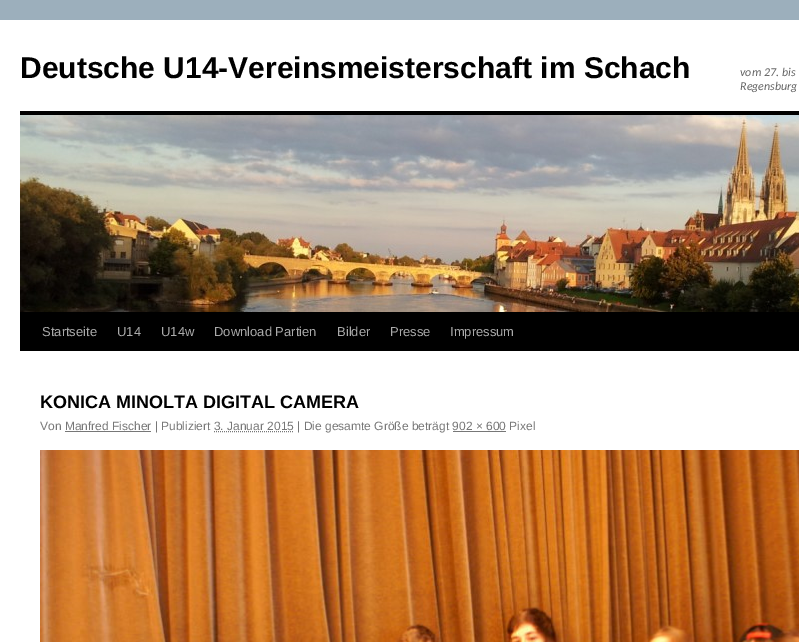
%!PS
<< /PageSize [799 642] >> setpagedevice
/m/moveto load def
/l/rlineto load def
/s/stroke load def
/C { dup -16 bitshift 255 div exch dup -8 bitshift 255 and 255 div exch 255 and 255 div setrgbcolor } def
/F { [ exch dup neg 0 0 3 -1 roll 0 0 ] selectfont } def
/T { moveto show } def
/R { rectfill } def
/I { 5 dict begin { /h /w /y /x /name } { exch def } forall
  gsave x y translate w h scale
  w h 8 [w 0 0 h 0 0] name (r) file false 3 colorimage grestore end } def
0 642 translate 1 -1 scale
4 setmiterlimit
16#9CAFBC C
0 0 799 642 R
16#FFFFFF C
0 20 799 622 R
/LiberationSans-Bold 30 F
16#000000 C
(Deutsche U14-Vereinsmeisterschaft im Schach) 20 78 T
/Carlito-Italic 12 F
16#666666 C
(vom 27. bis) 740 76 T
(Regensburg) 740 90 T
16#000000 C
20 111 779 4 R
20 312 779 39 R
(1.rgb) 20 115 779 197 I
/LiberationSans-Regular 13 F
16#AAAAAA C
(Startseite) 42 336 T
(U14) 117 336 T
(U14w) 161 336 T
(Download Partien) 214 336 T
(Bilder) 337 336 T
(Presse) 390 336 T
(Impressum) 450 336 T
/LiberationSans-Bold 18 F
16#000000 C
(KONICA MINOLTA DIGITAL CAMERA) 40 408 T
/LiberationSans-Regular 12 F
16#777777 C
(Von Manfred Fischer | Publiziert 3. Januar 2015 | Die gesamte Größe beträgt 902 × 600 Pixel) 40 430 T
65 431 86 1 R
[1 1] 0 setdash
214 431.5 m 80 0 l s
453 431 53 1 R
(2.rgb) 40 450 759 192 I
showpage
